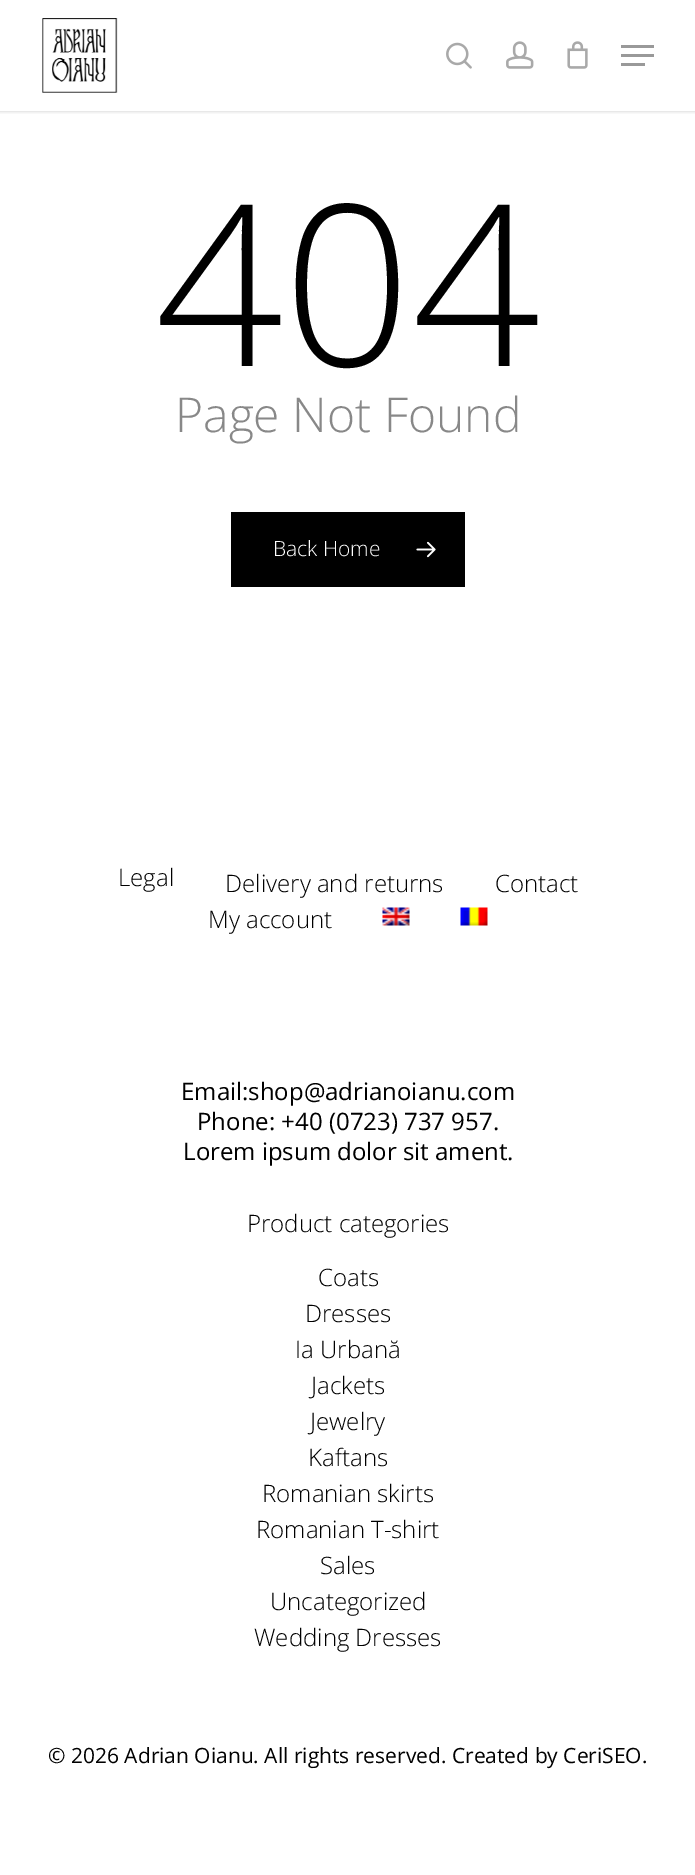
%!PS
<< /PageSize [695 1875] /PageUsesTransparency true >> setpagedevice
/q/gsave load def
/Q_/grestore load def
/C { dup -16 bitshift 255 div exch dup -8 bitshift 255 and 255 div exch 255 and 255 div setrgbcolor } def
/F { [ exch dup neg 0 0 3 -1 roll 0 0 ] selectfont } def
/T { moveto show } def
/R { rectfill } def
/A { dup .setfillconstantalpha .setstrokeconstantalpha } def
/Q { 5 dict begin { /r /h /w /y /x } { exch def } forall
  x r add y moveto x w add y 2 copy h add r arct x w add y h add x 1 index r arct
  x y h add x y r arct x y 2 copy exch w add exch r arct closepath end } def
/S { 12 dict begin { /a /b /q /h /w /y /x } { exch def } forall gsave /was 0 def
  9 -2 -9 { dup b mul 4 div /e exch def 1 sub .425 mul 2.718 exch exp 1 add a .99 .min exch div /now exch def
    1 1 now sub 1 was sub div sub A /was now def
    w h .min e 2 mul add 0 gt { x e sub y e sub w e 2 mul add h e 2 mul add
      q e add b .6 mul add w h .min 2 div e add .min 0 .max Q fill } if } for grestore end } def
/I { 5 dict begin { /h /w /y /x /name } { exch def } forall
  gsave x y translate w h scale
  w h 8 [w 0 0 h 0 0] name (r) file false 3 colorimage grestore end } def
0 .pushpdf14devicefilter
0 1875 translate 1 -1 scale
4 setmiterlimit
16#FFFFFF C
0 0 695 1875 R
q
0 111 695 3 rectclip
16#000000 C
0 0 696 111 0 2 .22 S
Q_
(1.rgb) 42 18 76 75 I
(2.rgb) 446 42 26 27 I
(3.rgb) 506 41 28 28 I
(4.rgb) 567 41 21 28 I
16#999999 C
621 45 33 3 R
621 63 24 3 R
621 54 33 3 R
/OpenSans-Light 225 F
16#000000 C
(404) 155 366 T
/OpenSans-Light 48 F
16#888888 C
(Page Not Found) 175 432 T
16#000000 C
231 512 234 75 R
/OpenSans-Light 21 F
16#FFFFFF C
(Back Home) 273 556 T
(5.rgb) 416 541 20 17 I
/OpenSans-Light 24 F
16#000000 C
(Legal) 118 886 T
(Delivery and returns) 225 892 T
(Contact) 495 892 T
(My account) 208 928 T
(6.rgb) 382 907 28 19 I
(7.rgb) 460 907 28 19 I
/OpenSans-Regular 24 F
(Email:shop@adrianoianu.com) 181 1100 T
(Phone: +40 \(0723\) 737 957.) 197 1130 T
(Lorem ipsum dolor sit ament.) 183 1160 T
/OpenSans-Light 24 F
(Product categories) 247 1232 T
(Coats) 318 1286 T
(Dresses) 305 1322 T
(Ia Urbană) 295 1358 T
(Jackets) 311 1394 T
(Jewelry) 310 1430 T
(Kaftans) 308 1466 T
(Romanian skirts) 262 1502 T
(Romanian T-shirt) 256 1538 T
(Sales) 320 1574 T
(Uncategorized) 270 1610 T
(Wedding Dresses) 254 1646 T
/OpenSans-Regular 21 F
(© 2026 Adrian Oianu. All rights reserved. Created by CeriSEO.) 48 1763 T
.poppdf14devicefilter showpage
